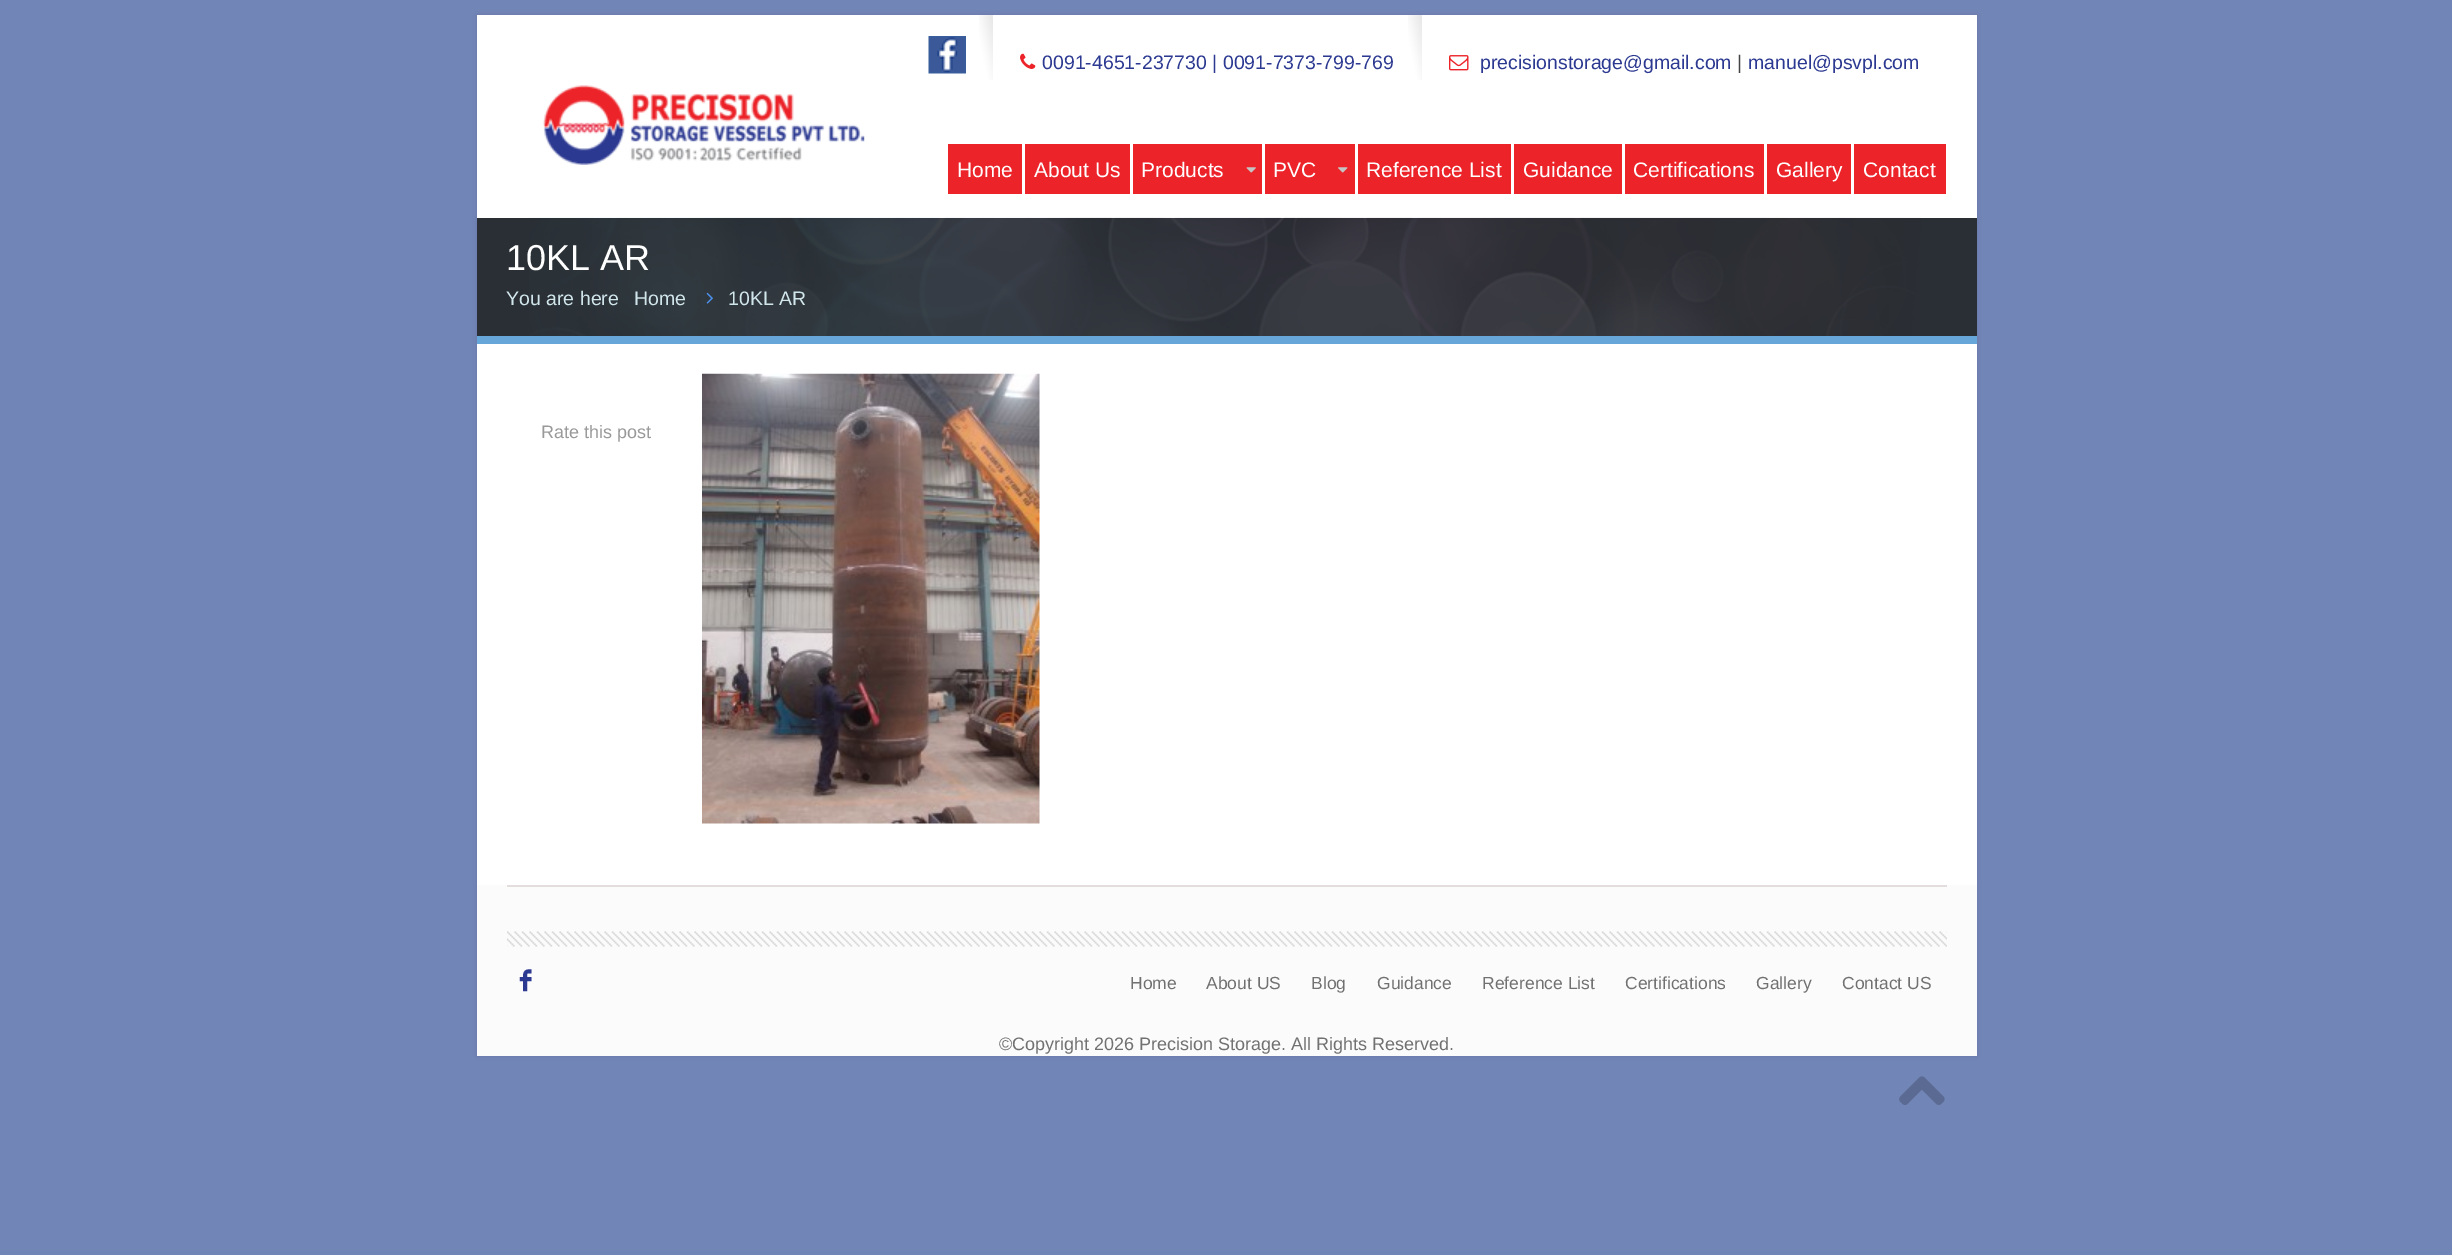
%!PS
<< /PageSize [2452 1255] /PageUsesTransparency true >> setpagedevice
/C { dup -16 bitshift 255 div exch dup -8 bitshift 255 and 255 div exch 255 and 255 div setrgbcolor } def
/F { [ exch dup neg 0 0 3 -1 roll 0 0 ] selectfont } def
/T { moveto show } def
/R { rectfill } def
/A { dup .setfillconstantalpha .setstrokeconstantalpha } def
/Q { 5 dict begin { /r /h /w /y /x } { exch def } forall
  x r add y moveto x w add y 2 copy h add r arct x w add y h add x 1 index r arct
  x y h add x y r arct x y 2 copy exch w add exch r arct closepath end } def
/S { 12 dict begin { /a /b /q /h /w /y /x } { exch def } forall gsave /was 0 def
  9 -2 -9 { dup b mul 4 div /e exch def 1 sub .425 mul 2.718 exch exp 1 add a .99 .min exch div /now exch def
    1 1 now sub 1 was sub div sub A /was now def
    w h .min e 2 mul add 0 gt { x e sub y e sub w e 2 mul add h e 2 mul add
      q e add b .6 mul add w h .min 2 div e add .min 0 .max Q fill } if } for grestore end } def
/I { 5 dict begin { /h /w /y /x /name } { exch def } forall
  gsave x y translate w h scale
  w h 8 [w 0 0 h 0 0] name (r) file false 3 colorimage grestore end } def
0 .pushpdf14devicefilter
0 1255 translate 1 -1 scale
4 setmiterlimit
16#7185B7 C
0 0 2452 1255 R
16#000000 C
477 15 1500 1041 0 2 .1 S
16#FFFFFF C
477 15 1500 870 R
(1.rgb) 979 15 14 65 I
(2.rgb) 928 36 38 38 I
(3.rgb) 1408 15 14 65 I
(4.rgb) 1020 53 16 16 I
/LiberationSans-Regular 19.5 F
16#2C3991 C
(0091-4651-237730 | 0091-7373-799-769) 1042 69 T
(5.rgb) 1449 55 20 16 I
(precisionstorage@gmail.com) 1480 69 T
16#444444 C
(|) 1737 69 T
16#2C3991 C
(manuel@psvpl.com) 1748 69 T
(6.rgb) 543 85 322 80 I
16#EC242A C
948 144 74 50 R
/LiberationSans-Regular 21 F
16#FFFFFF C
(Home) 957 177 T
16#EC242A C
1025 144 105 50 R
16#FFFFFF C
(About Us) 1034 177 T
16#EC242A C
1133 144 129 50 R
16#FFFFFF C
(Products) 1141 177 T
(7.rgb) 1246 167 10 6 I
16#EC242A C
1265 144 90 50 R
16#FFFFFF C
(PVC) 1273 177 T
(8.rgb) 1338 167 10 6 I
16#EC242A C
1358 144 153 50 R
16#FFFFFF C
(Reference List) 1366 177 T
16#EC242A C
1514 144 108 50 R
16#FFFFFF C
(Guidance) 1523 177 T
16#EC242A C
1625 144 139 50 R
16#FFFFFF C
(Certifications) 1633 177 T
16#EC242A C
1767 144 84 50 R
16#FFFFFF C
(Gallery) 1776 177 T
16#EC242A C
1854 144 92 50 R
16#FFFFFF C
(Contact) 1863 177 T
16#2A2F35 C
477 218 1500 118 R
(9.rgb) 529 217 1392 119 I
16#66A6D8 C
477 336 1500 8 R
/LiberationSans-Regular 36 F
16#FFFFFF C
(10KL AR) 506 270 T
/LiberationSans-Regular 19.5 F
16#D0E6EB C
(You are here) 506 305 T
(Home) 634 305 T
(10.rgb) 706 292 7 12 I
(10KL AR) 728 305 T
/LiberationSans-Regular 18 F
16#999999 C
(Rate this post) 541 438 T
(11.rgb) 702 373 338 451 I
16#FBFBFB C
477 885 1500 171 R
16#E4DDDD C
507 885 1440 2 R
(12.rgb) 507 931 1440 16 I
/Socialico-Regular 36 F
16#2C3991 C
(F) 518 993 T
/LiberationSans-Regular 17.5 F
16#717171 C
(Home) 1130 989 T
(About US) 1206 989 T
(Blog) 1311 989 T
(Guidance) 1377 989 T
(Reference List) 1482 989 T
(Certifications) 1625 989 T
(Gallery) 1756 989 T
(Contact US) 1842 989 T
/LiberationSans-Regular 18 F
(©Copyright 2026 Precision Storage. All Rights Reserved.) 999 1050 T
(13.rgb) 1899 1076 46 29 I
.poppdf14devicefilter showpage
